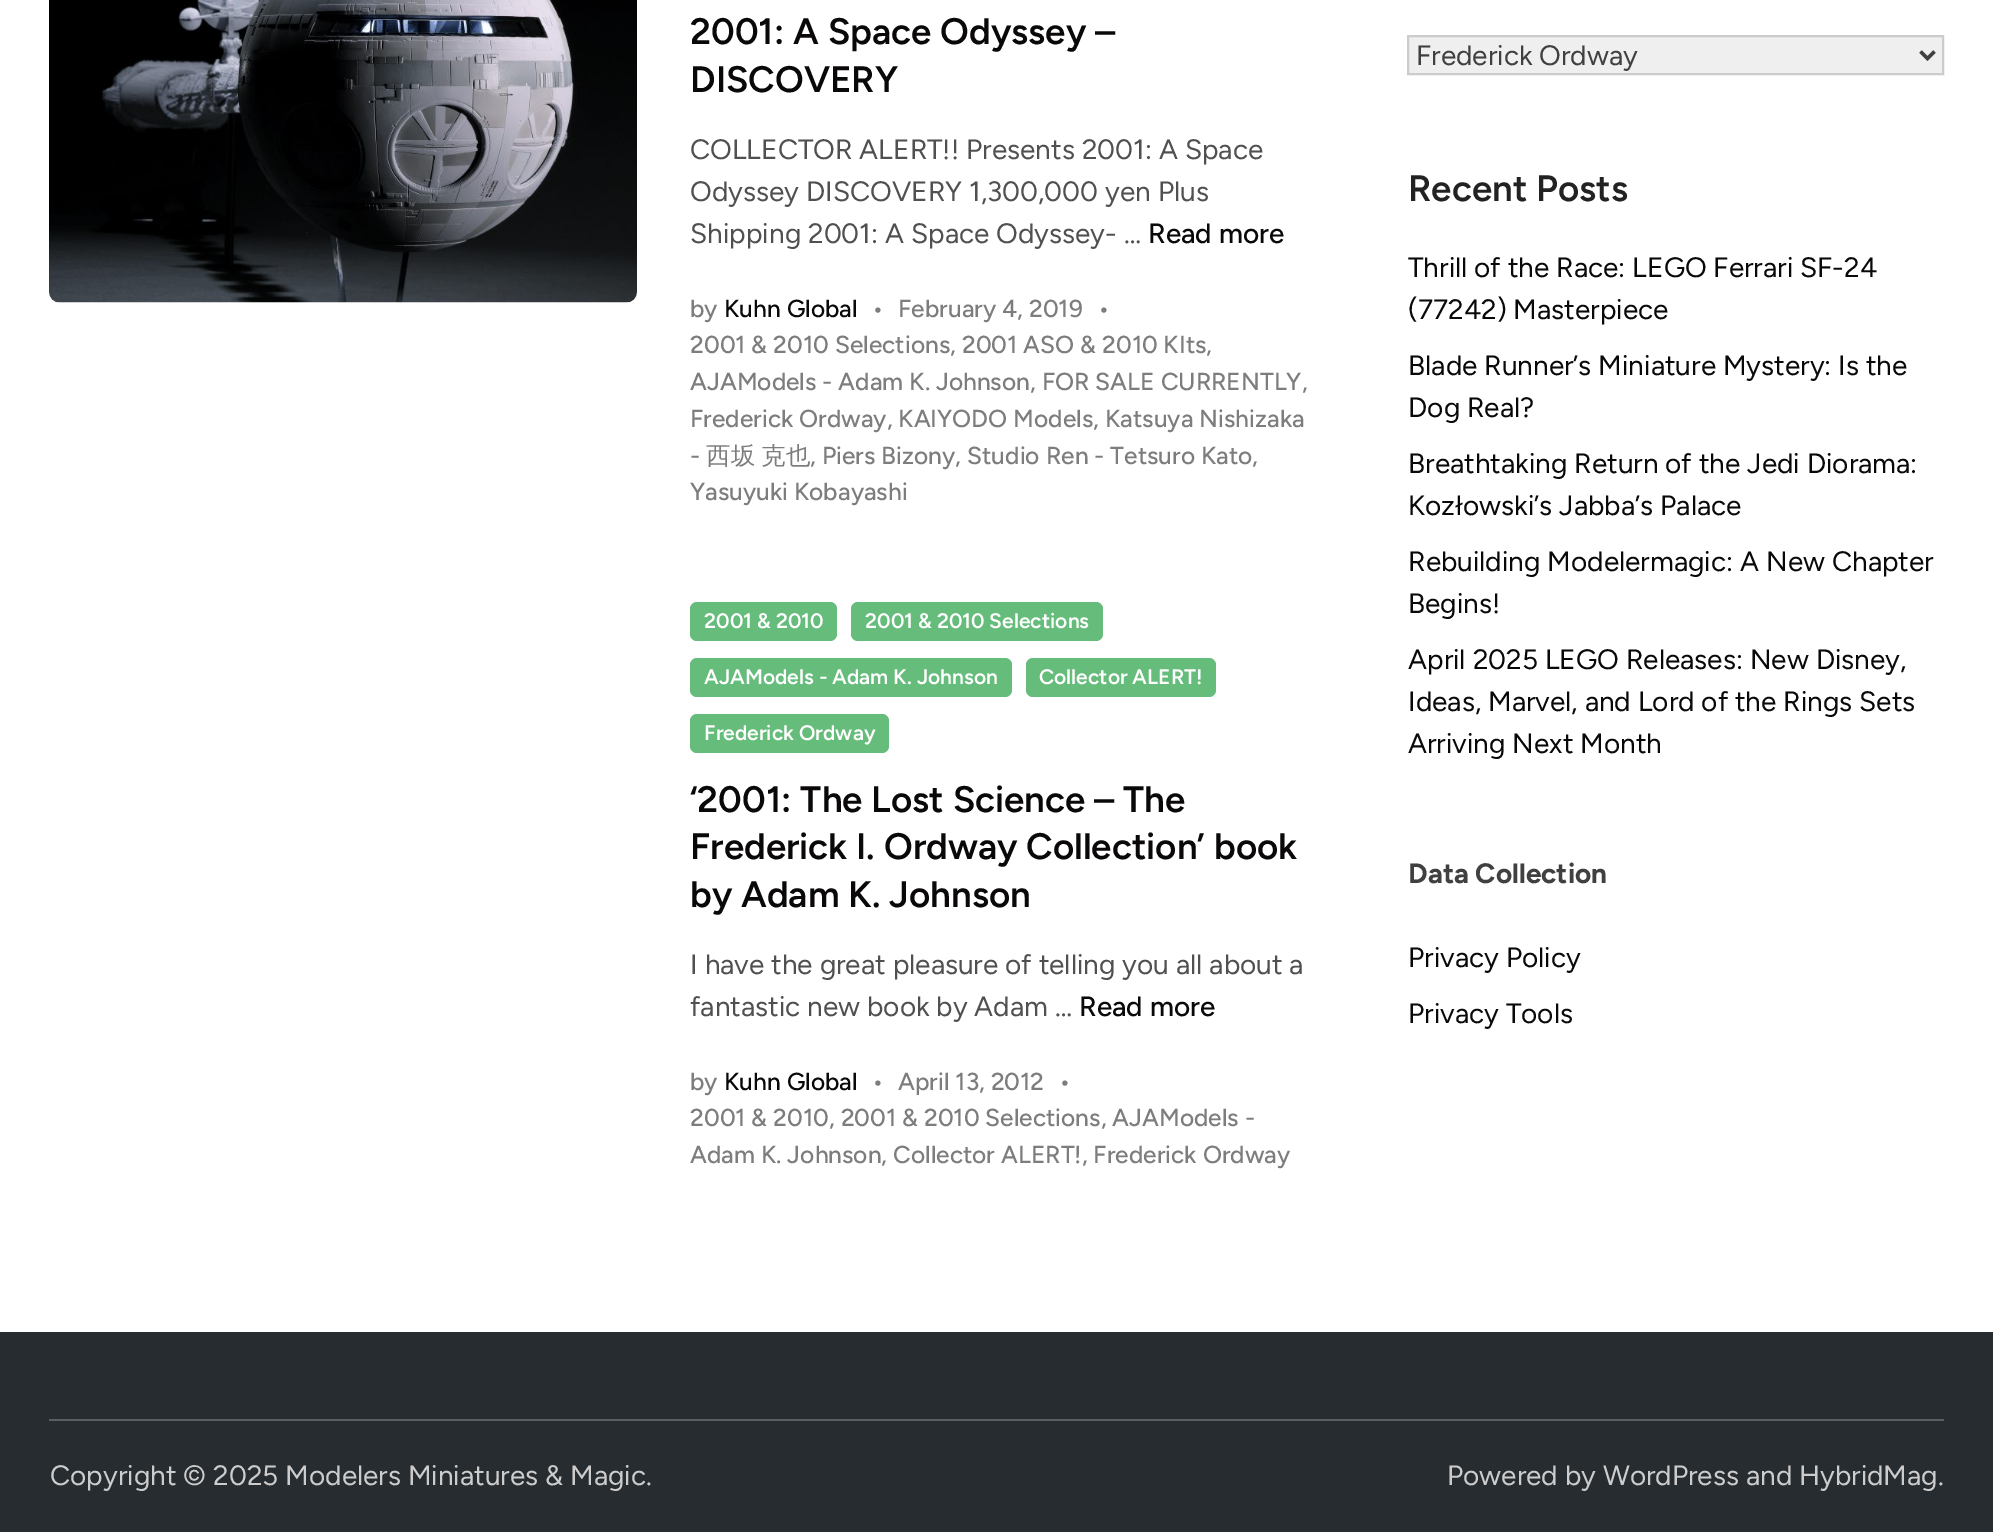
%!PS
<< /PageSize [1993 1532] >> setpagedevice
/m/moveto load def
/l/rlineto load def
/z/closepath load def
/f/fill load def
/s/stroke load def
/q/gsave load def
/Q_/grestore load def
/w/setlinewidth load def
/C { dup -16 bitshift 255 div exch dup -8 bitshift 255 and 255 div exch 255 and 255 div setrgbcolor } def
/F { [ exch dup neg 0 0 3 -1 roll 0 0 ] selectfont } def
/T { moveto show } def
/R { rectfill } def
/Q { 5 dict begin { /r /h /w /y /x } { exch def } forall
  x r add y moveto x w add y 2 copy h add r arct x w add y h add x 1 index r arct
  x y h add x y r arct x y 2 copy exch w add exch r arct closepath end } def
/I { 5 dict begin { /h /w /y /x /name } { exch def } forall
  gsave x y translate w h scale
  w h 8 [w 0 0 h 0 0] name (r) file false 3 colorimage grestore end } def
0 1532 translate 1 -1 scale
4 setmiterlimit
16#FFFFFF C
0 0 1993 1532 R
(1.rgb) 49 0 588 303 I
/Figtree-SemiBold 36.75 F
16#0A0808 C
(2001: A Space Odyssey –) 690 44 T
(DISCOVERY) 690 92 T
/Figtree-Regular 28 F
16#505050 C
(COLLECTOR ALERT!! Presents 2001: A Space) 690 159 T
(Odyssey DISCOVERY 1,300,000 yen Plus) 690 201 T
(Shipping 2001: A Space Odyssey- …) 690 243 T
/Figtree-Medium 28 F
16#0A0808 C
(Read more) 1148 243 T
/Figtree-Medium 24.5 F
16#7D7D7D C
(by) 690 317 T
16#0A0808 C
(Kuhn Global) 724 317 T
16#7D7D7D C
(•) 872 317 T
(February 4, 2019) 898 317 T
(•) 1098 317 T
(2001 & 2010 Selections, 2001 ASO & 2010 KIts,) 690 353 T
(AJAModels - Adam K. Johnson, FOR SALE CURRENTLY,) 690 390 T
(Frederick Ordway, KAIYODO Models, Katsuya Nishizaka) 690 427 T
(-) 690 464 T
/WenQuanYiZenHei-Medium 24.5 F
706 464 m -1 0 32 (西坂 克也) widthshow
/Figtree-Medium 24.5 F
(, Piers Bizony, Studio Ren - Tetsuro Kato,) 810 464 T
(Yasuyuki Kobayashi) 690 500 T
16#65BC7B C
690 602 147 39 7 Q f
/Figtree-SemiBold 21 F
16#FFFFFF C
(2001 & 2010) 704 628 T
16#65BC7B C
851 602 252 39 7 Q f
16#FFFFFF C
(2001 & 2010 Selections) 865 628 T
16#65BC7B C
690 658 322 39 7 Q f
16#FFFFFF C
(AJAModels - Adam K. Johnson) 704 684 T
16#65BC7B C
1026 658 190 39 7 Q f
16#FFFFFF C
(Collector ALERT!) 1039 684 T
16#65BC7B C
690 714 199 39 7 Q f
16#FFFFFF C
(Frederick Ordway) 704 740 T
/Figtree-SemiBold 36.75 F
16#0A0808 C
(‘2001: The Lost Science – The) 690 812 T
(Frederick I. Ordway Collection’ book) 690 859 T
(by Adam K. Johnson) 690 907 T
/Figtree-Regular 28 F
16#505050 C
(I have the great pleasure of telling you all about a) 690 974 T
(fantastic new book by Adam …) 690 1016 T
/Figtree-Medium 28 F
16#0A0808 C
(Read more) 1079 1016 T
/Figtree-Medium 24.5 F
16#7D7D7D C
(by) 690 1090 T
16#0A0808 C
(Kuhn Global) 724 1090 T
16#7D7D7D C
(•) 872 1090 T
(April 13, 2012) 898 1090 T
(•) 1059 1090 T
(2001 & 2010, 2001 & 2010 Selections, AJAModels -) 690 1126 T
(Adam K. Johnson, Collector ALERT!, Frederick Ordway) 690 1163 T
16#EFEFEF C
1408 36 m 535 0 l 0 38 l -535 0 l z q f Q_
16#CCCCCC C
2 w
s
16#404040 C
3.5 w
1920.5 51.5 m 7 7 l 7 -7 l s
/Figtree-Regular 28 F
(Frederick Ordway) 1416 65 T
/Figtree-SemiBold 36.75 F
16#222222 C
(Recent Posts) 1408 201 T
/Figtree-Regular 28 F
16#0A0808 C
(Thrill of the Race: LEGO Ferrari SF-24) 1408 277 T
(\(77242\) Masterpiece) 1408 319 T
(Blade Runner’s Miniature Mystery: Is the) 1408 375 T
(Dog Real?) 1408 417 T
(Breathtaking Return of the Jedi Diorama:) 1408 473 T
(Kozłowski’s Jabba’s Palace) 1408 515 T
(Rebuilding Modelermagic: A New Chapter) 1408 571 T
(Begins!) 1408 613 T
(April 2025 LEGO Releases: New Disney,) 1408 669 T
(Ideas, Marvel, and Lord of the Rings Sets) 1408 711 T
(Arriving Next Month) 1408 753 T
/Figtree-Bold 28 F
16#404040 C
(Data Collection) 1408 883 T
/Figtree-Regular 28 F
16#0A0808 C
(Privacy Policy) 1408 967 T
(Privacy Tools) 1408 1023 T
16#272C30 C
0 1332 1993 200 R
16#595F64 C
49 1419 1895 2 R
16#CCCCCC C
(Copyright © 2025 Modelers Miniatures & Magic.) 50 1485 T
(Powered by WordPress and HybridMag.) 1447 1485 T
showpage
